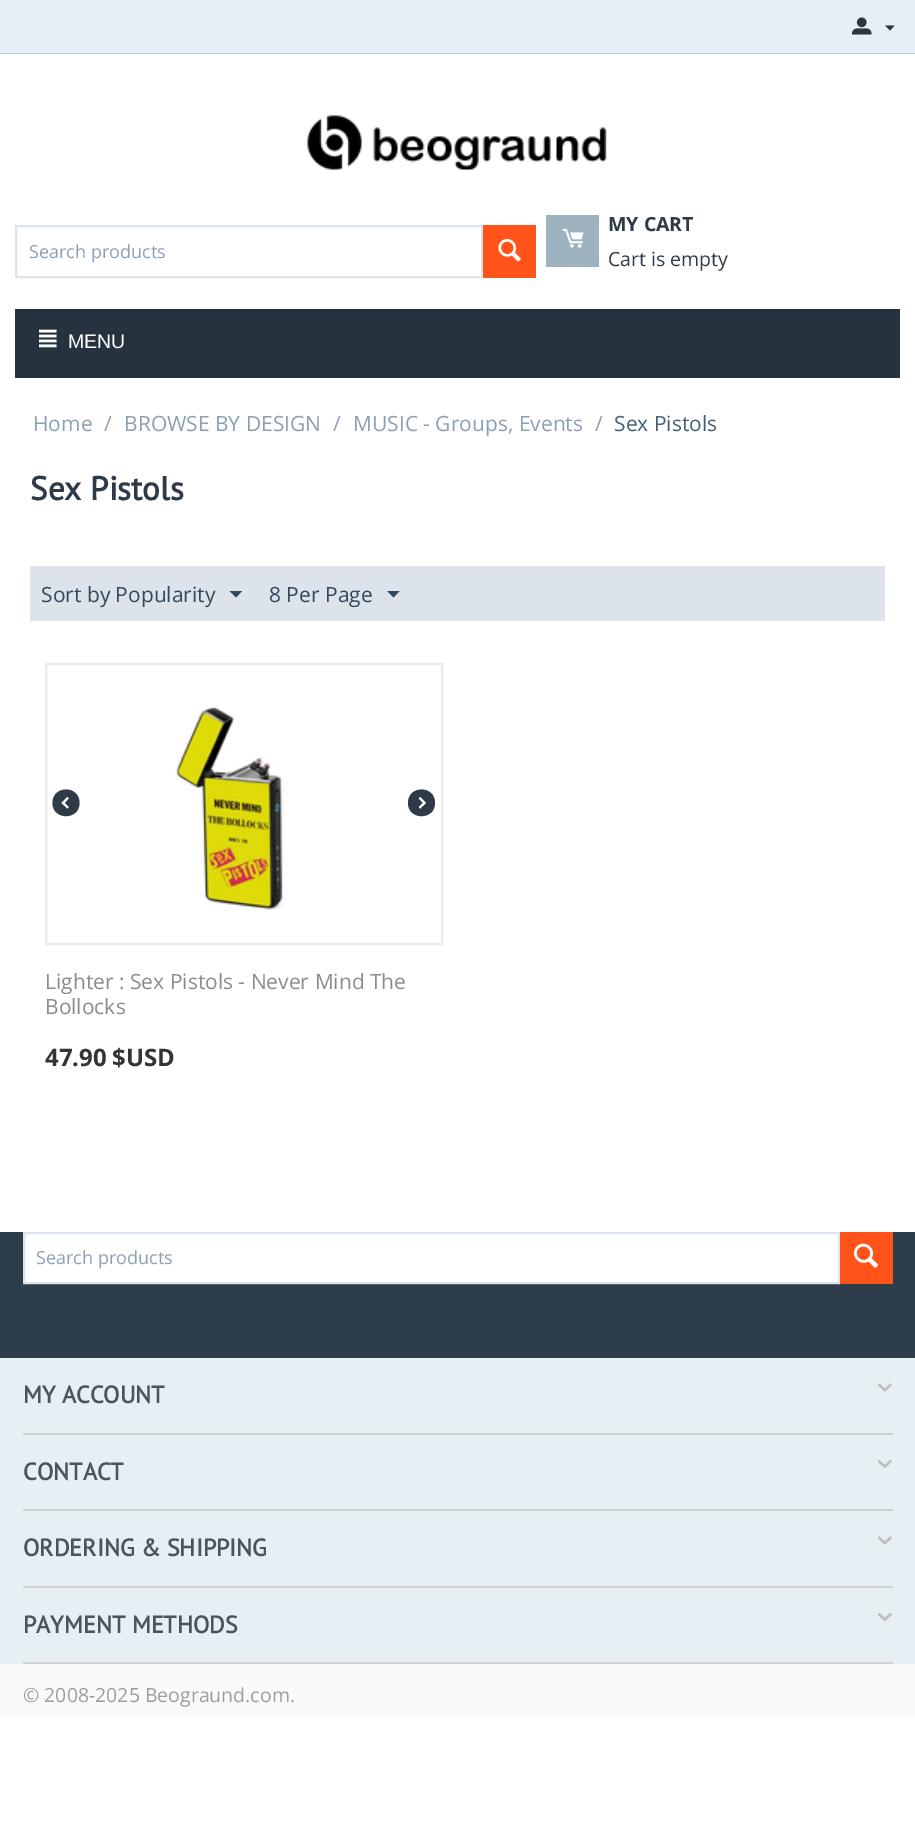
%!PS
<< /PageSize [915 1838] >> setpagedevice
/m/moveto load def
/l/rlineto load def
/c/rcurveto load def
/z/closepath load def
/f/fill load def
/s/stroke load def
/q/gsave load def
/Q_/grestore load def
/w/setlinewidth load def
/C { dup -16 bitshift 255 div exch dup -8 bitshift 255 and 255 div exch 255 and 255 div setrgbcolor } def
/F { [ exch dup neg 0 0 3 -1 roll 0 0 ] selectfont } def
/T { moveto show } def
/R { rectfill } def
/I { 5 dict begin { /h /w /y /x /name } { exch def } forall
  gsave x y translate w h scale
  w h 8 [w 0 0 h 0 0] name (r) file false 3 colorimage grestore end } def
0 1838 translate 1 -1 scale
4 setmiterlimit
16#FFFFFF C
0 0 915 1838 R
16#E6EFF4 C
0 0 915 53 R
16#B1CDDD C
0 53 915 1 R
(1.rgb) 852 17 20 18 I
16#2D3540 C
890 30.5 m -5 -5 l 9.5 0 l z f
(2.rgb) 307 115 300 55 I
16#DCE3EA C
2 w
16 226 466 51 rectstroke
/OpenSans-Regular 18 F
16#8CA0B5 C
(Search products) 29 258 T
16#FF5319 C
483 225 53 53 R
(3.rgb) 498 239 23 23 I
16#9FB2C0 C
546 215 53 52 R
(4.rgb) 562 228 22 20 I
/OpenSans-Bold 19.5 F
16#2E3A47 C
(MY CART) 608 231 T
/OpenSans-Regular 19.5 F
(Cart is empty) 608 266 T
16#26323E C
15 309 885 69 R
(5.rgb) 39 329 18 19 I
/LiberationSans-Regular 19.5 F
16#FFFFFF C
(MENU) 68 348 T
/OpenSans-Regular 21 F
16#8CA0B5 C
(Home) 33 431 T
(/) 104 431 T
(BROWSE BY DESIGN) 124 431 T
(/) 333 431 T
(MUSIC - Groups, Events) 353 431 T
(/) 595 431 T
16#465F73 C
(Sex Pistols) 614 431 T
/PTSans-Bold 33 F
16#2E3A47 C
(Sex Pistols) 30 500 T
16#DCE3EA C
30 566 855 55 R
/OpenSans-Regular 21 F
16#34495E C
(Sort by Popularity) 41 602 T
236 597.5 m -6.5 -6.5 l 12.5 0 l z f
(8 Per Page) 269 602 T
393.5 597.5 m -6.5 -6.5 l 12.5 0 l z f
16#EBEBEB C
46 664 396 280 rectstroke
(6.rgb) 174 706 111 206 I
16#2E3A47 C
67.5 809 m 1.5 -2 l -4 -4 l 4 -4.5 l -1.5 -2 l -6.5 6.5 l z 79.5 803 m 0 17.5 -27 17.5 -27 0 c 0 -18 27 -18 27 0 c z f
420 809 m 6.5 -6 l -6.5 -6.5 l -1.5 2 l 4 4.5 l -4 4 l z 435 803 m 0 17.5 -27 17.5 -27 0 c 0 -18 27 -18 27 0 c z f
16#8D8C8C C
(Lighter : Sex Pistols - Never Mind The) 45 989 T
(Bollocks) 45 1014 T
/OpenSans-Bold 24 F
16#343434 C
(47.90) 45 1066 T
($USD) 112 1066 T
16#E6EFF4 C
0 1358 915 306 R
16#2D3D4A C
0 1232 915 126 R
16#FFFFFF C
24 1233 m 815 0 l 0 50 l -815 0 l z q f Q_
16#DCE3EA C
s
/OpenSans-Regular 18 F
16#8CA0B5 C
(Search products) 36 1264 T
16#FF5319 C
840 1232 53 52 R
(7.rgb) 854 1243 24 25 I
16#CFD1D4 C
23 1433 870 2 R
/PTSans-Bold 24 F
16#4C535D C
(MY ACCOUNT) 23 1403 T
(8.rgb) 878 1383 14 9 I
16#CFD1D4 C
23 1509 870 2 R
16#4C535D C
(CONTACT) 23 1480 T
(9.rgb) 878 1460 14 8 I
16#CFD1D4 C
23 1586 870 2 R
16#4C535D C
(ORDERING & SHIPPING) 23 1556 T
(8.rgb) 878 1536 14 9 I
16#CFD1D4 C
23 1662 870 2 R
16#4C535D C
(PAYMENT METHODS) 23 1633 T
(9.rgb) 878 1613 14 8 I
16#F8FAFC C
0 1664 915 54 R
/OpenSans-Regular 19.5 F
16#9A9EA3 C
(© 2008-2025 Beograund.com.) 23 1702 T
showpage
